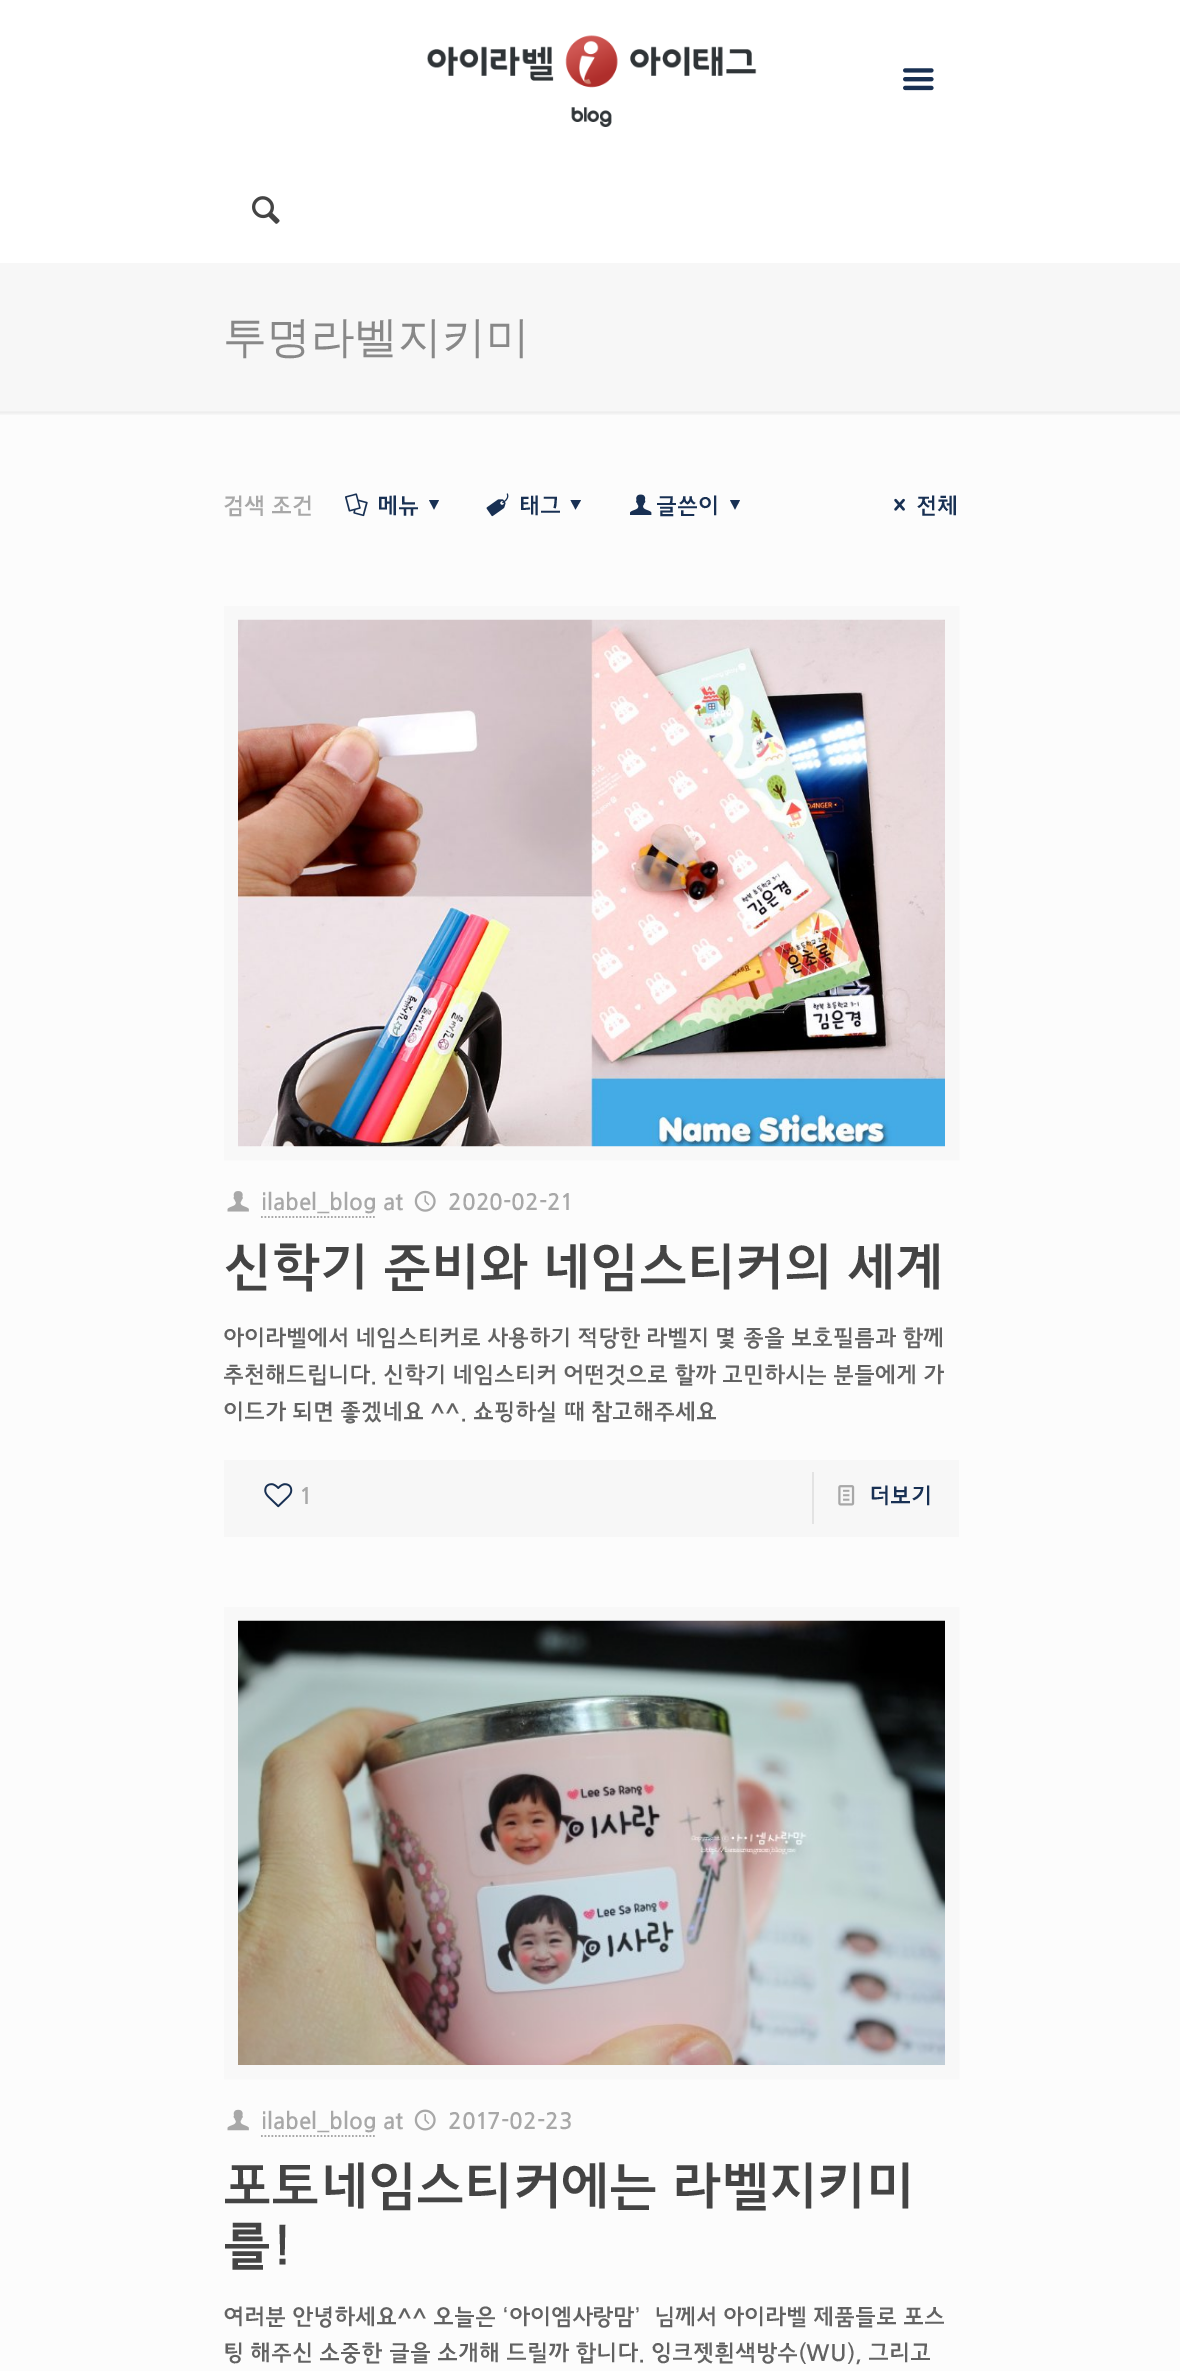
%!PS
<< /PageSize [1180 2371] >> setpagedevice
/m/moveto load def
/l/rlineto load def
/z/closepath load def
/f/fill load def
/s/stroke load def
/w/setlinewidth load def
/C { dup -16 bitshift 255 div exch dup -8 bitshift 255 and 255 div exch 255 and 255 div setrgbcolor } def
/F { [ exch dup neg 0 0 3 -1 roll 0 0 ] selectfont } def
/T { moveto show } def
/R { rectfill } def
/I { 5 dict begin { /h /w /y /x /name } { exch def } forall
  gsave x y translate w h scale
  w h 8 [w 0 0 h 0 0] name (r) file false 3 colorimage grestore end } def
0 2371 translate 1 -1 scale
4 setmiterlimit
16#FCFCFC C
0 0 1180 2371 R
16#FFFFFF C
0 0 1180 263 R
(1.rgb) 427 35 330 92 I
(2.rgb) 903 68 31 23 I
(3.rgb) 252 196 28 28 I
16#F7F7F7 C
0 263 1180 148 R
/WenQuanYiZenHei-Medium 43.75 F
16#888888 C
(투명라벨지키미) 223 352 T
(4.rgb) 0 411 1180 4 I
/JejuGothic-Regular 22.75 F
16#A8A8A8 C
(검색 조건) 223 513 T
(5.rgb) 345 493 23 24 I
16#183053 C
(메뉴) 377 513 T
439 500 m -5 9.5 l -5 -9.5 l z f
(6.rgb) 486 493 23 24 I
(태그) 519 513 T
581 500 m -5.5 9.5 l -5 -9.5 l z f
(7.rgb) 630 494 22 21 I
(글쓴이) 656 513 T
740 500 m -5 9.5 l -5 -9.5 l z f
(8.rgb) 894 498 11 13 I
(전체) 916 513 T
16#F8F8F8 C
14 w
231 613 721 540 rectstroke
(9.rgb) 238 619 707 528 I
(10.rgb) 227 1191 22 21 I
16#A8A8A8 C
(ilabel_blog at) 261 1209 T
1.8 w
[1.75 1.75] 0 setdash
261 1217 m 115 0 l s
(11.rgb) 414 1190 22 22 I
(2020-02-21) 448 1209 T
/JejuGothic-Regular 52.5 F
16#444444 C
(신학기 준비와 네임스티커의 세계) 223 1284 T
/JejuGothic-Regular 22.75 F
16#626262 C
(아이라벨에서 네임스티커로 사용하기 적당한 라벨지 몇 종을 보호필름과 함께) 223 1345 T
(추천해드립니다. 신학기 네임스티커 어떤것으로 할까 고민하시는 분들에게 가) 223 1382 T
(이드가 되면 좋겠네요 ^^. 쇼핑하실 때 참고해주세요) 223 1419 T
16#F7F7F7 C
224 1460 735 77 R
(12.rgb) 264 1483 29 25 I
16#A8A8A8 C
(1) 300 1503 T
16#E3E3E3 C
812 1472 2 52 R
(13.rgb) 838 1485 17 21 I
16#183053 C
(더보기) 869 1503 T
16#F8F8F8 C
14 w
[] 0 setdash
231 1614 721 458 rectstroke
(14.rgb) 238 1620 707 445 I
(15.rgb) 227 2109 22 22 I
16#A8A8A8 C
(ilabel_blog at) 261 2128 T
1.8 w
[1.75 1.75] 0 setdash
261 2136 m 115 0 l s
(16.rgb) 414 2109 22 22 I
(2017-02-23) 448 2128 T
/JejuGothic-Regular 52.5 F
16#444444 C
(포토네임스티커에는 라벨지키미) 223 2203 T
(를!) 223 2262 T
/JejuGothic-Regular 22.75 F
16#626262 C
(여러분 안녕하세요^^ 오늘은 ‘아이엠사랑맘’  님께서 아이라벨 제품들로 포스) 223 2324 T
(팅 해주신 소중한 글을 소개해 드릴까 합니다. 잉크젯흰색방수\(WU\), 그리고) 223 2360 T
showpage
